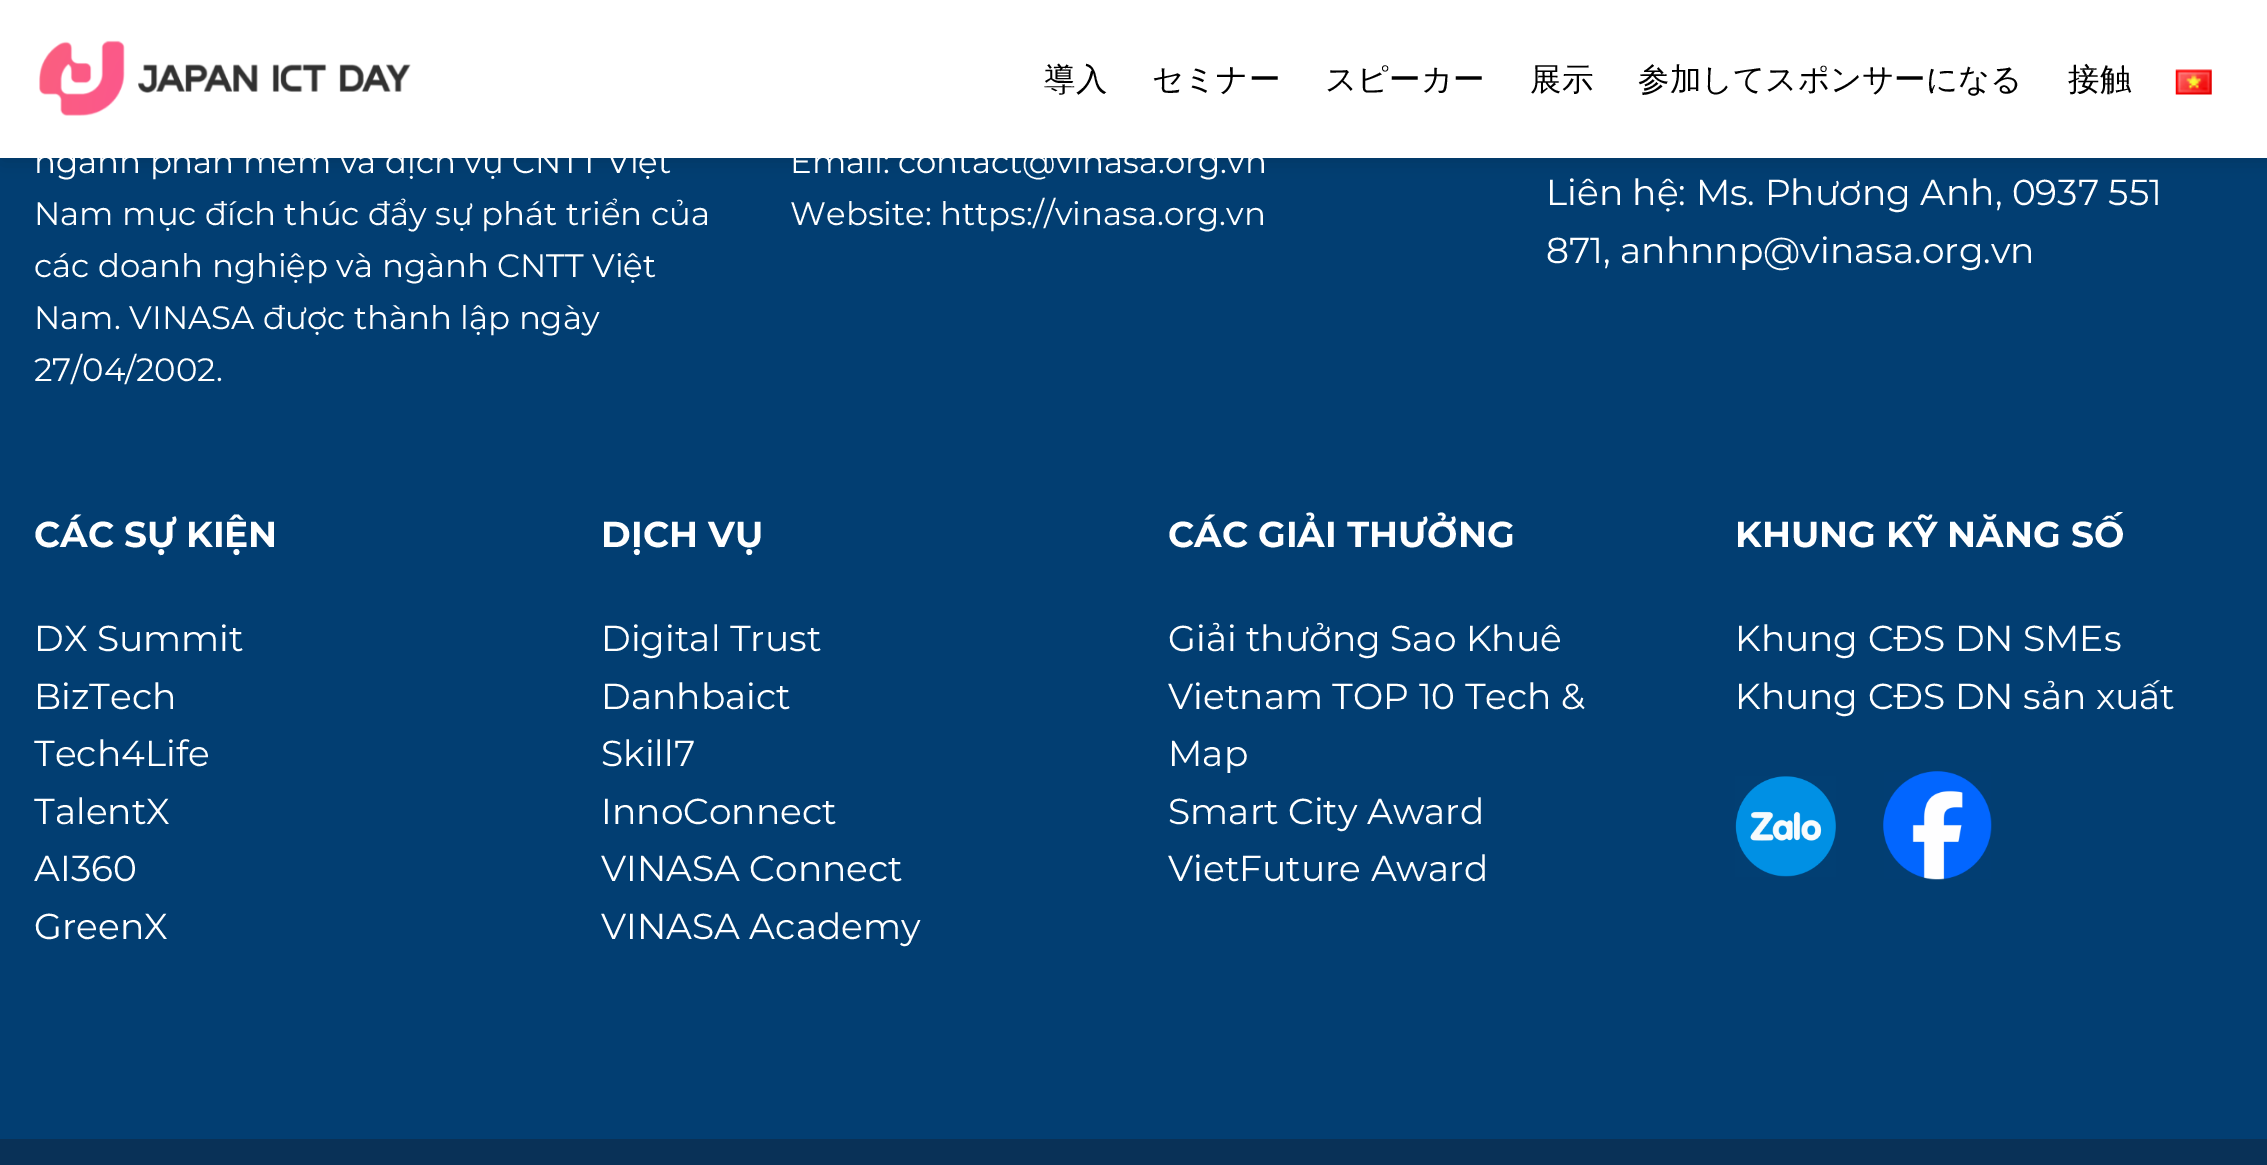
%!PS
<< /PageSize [2267 1165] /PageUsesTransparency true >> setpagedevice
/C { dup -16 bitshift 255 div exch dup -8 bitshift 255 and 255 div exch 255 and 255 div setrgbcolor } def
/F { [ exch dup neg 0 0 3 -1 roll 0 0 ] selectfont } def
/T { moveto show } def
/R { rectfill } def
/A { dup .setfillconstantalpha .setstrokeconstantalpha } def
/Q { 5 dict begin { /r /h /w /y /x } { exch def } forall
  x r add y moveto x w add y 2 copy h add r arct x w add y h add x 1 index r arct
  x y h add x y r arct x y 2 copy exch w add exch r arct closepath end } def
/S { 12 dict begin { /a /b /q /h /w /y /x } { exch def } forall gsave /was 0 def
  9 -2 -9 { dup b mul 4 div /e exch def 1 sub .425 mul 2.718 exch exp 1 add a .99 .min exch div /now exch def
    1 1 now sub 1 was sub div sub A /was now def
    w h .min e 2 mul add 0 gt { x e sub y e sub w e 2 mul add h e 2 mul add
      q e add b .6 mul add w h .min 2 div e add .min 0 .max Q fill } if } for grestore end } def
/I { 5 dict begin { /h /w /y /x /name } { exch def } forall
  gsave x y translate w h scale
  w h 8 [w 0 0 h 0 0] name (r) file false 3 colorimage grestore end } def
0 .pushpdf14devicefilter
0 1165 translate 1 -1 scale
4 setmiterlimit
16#093157 C
0 0 2267 1165 R
16#023E72 C
0 158 2267 981 R
16#000000 C
2 2 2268 158 0 11 .15 S
16#FFFFFF C
0 0 2267 158 R
(1.rgb) 39 40 372 76 I
/WenQuanYiZenHei-Medium 31.5 F
16#000000 C
(導入) 1044 90 T
(セミナー) 1152 90 T
(スピーカー) 1325 90 T
(展示) 1530 90 T
(参加してスポンサーになる) 1638 90 T
(接触) 2068 90 T
(2.rgb) 2175 69 37 26 I
/Montserrat-Regular 32.4 F
16#FFFFFF C
(ngành phần mềm và dịch vụ CNTT Việt) 34 173 T
(Nam mục đích thúc đẩy sự phát triển của) 34 225 T
(các doanh nghiệp và ngành CNTT Việt) 34 277 T
(Nam. VINASA được thành lập ngày) 34 329 T
(27/04/2002.) 34 381 T
(Email: contact@vinasa.org.vn) 790 173 T
(Website: https://vinasa.org.vn) 790 225 T
/Montserrat-Regular 36 F
(Liên hệ: Ms. Phương Anh, 0937 551) 1546 205 T
(871, anhnnp@vinasa.org.vn) 1546 263 T
/Montserrat-Bold 36 F
(CÁC SỰ KIỆN) 34 547 T
/Montserrat-Regular 36 F
(DX Summit) 34 651 T
(BizTech) 34 709 T
(Tech4Life) 34 766 T
(TalentX) 34 824 T
(AI360) 34 881 T
(GreenX) 34 939 T
/Montserrat-Bold 36 F
(DỊCH VỤ) 601 547 T
/Montserrat-Regular 36 F
(Digital Trust) 601 651 T
(Danhbaict) 601 709 T
(Skill7) 601 766 T
(InnoConnect) 601 824 T
(VINASA Connect) 601 881 T
(VINASA Academy) 601 939 T
/Montserrat-Bold 36 F
(CÁC GIẢI THƯỞNG) 1168 547 T
/Montserrat-Regular 36 F
(Giải thưởng Sao Khuê) 1168 651 T
(Vietnam TOP 10 Tech &) 1168 709 T
(Map) 1168 766 T
(Smart City Award) 1168 824 T
(VietFuture Award) 1168 881 T
/Montserrat-Bold 36 F
(KHUNG KỸ NĂNG SỐ) 1735 547 T
/Montserrat-Regular 36 F
(Khung CĐS DN SMEs) 1735 651 T
(Khung CĐS DN sản xuất) 1735 709 T
(3.rgb) 1735 776 101 101 I
(4.rgb) 1883 771 109 109 I
.poppdf14devicefilter showpage
